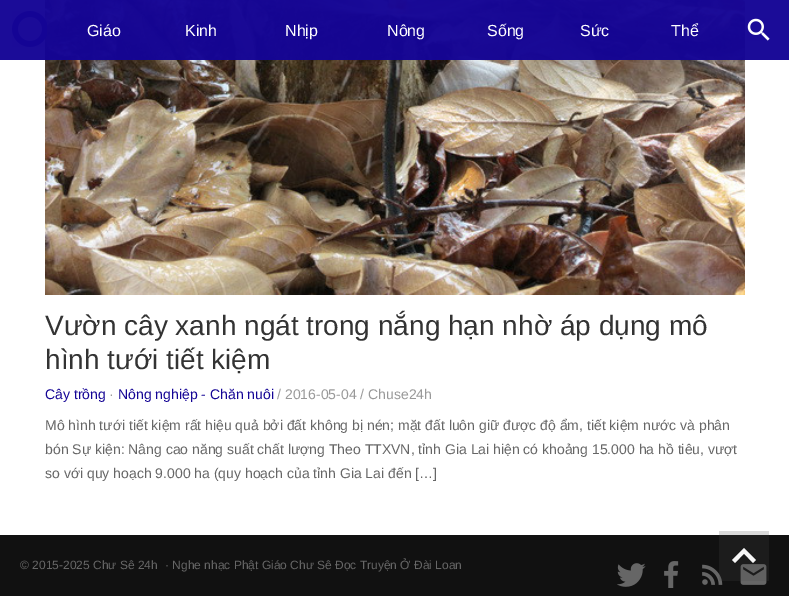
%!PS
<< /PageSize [789 596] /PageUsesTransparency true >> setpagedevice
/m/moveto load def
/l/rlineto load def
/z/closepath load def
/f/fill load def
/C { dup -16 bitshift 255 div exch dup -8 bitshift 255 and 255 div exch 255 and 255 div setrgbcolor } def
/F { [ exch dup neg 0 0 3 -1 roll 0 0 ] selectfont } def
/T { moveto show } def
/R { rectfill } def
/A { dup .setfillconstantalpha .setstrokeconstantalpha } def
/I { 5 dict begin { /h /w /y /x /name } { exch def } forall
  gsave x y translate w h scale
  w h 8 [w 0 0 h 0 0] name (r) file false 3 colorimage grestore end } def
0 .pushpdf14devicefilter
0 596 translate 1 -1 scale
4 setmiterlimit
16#FFFFFF C
0 0 789 596 R
(3.rgb) 45 0 700 295 I
0.97 A
16#140495 C
0 0 789 60 R
1 A
(1.rgb) 12 11 35 36 I
/LiberationSans-Regular 16 F
16#FFFFFF C
(Giáo) 87 36 T
(Kinh) 185 36 T
(Nhịp) 285 36 T
(Nông) 387 36 T
(Sống) 487 36 T
(Sức) 580 36 T
(Thể) 671 36 T
(2.rgb) 747 18 23 23 I
/LiberationSans-Regular 28 F
16#333333 C
(Vườn cây xanh ngát trong nắng hạn nhờ áp dụng mô) 45 335 T
(hình tưới tiết kiệm) 45 369 T
/LiberationSans-Regular 14 F
16#140495 C
(Cây trồng) 45 399 T
16#999999 C
(·) 109 399 T
16#140495 C
(Nông nghiệp - Chăn nuôi) 118 399 T
16#999999 C
(/ 2016-05-04 / Chuse24h) 277 399 T
16#666666 C
(Mô hình tưới tiết kiệm rất hiệu quả bởi đất không bị nén; mặt đất luôn giữ được độ ẩm, tiết kiệm nước và phân) 45 430 T
(bón Sự kiện: Nâng cao năng suất chất lượng Theo TTXVN, tỉnh Gia Lai hiện có khoảng 15.000 ha hồ tiêu, vượt) 45 454 T
(so với quy hoạch 9.000 ha \(quy hoạch của tỉnh Gia Lai đến […]) 45 478 T
16#111111 C
0 535 789 61 R
/LiberationSans-Regular 12 F
16#666666 C
(© 2015-2025 Chư Sê 24h) 20 569 T
(· Nghe nhạc Phật Giáo Chư Sê Đọc Truyện Ở Đài Loan) 165 569 T
(6.rgb) 702 564 21 21 I
(7.rgb) 740 564 27 21 I
0.2 A
16#464646 C
719 531 50 50 R
1 A
16#F7F7F7 C
735 563 m -3 -3 l 12 -12 l 12 12 l -3 3 l -9 -9.5 l z f
(4.rgb) 617 563 29 24 I
(5.rgb) 664 561 15 27 I
.poppdf14devicefilter showpage
